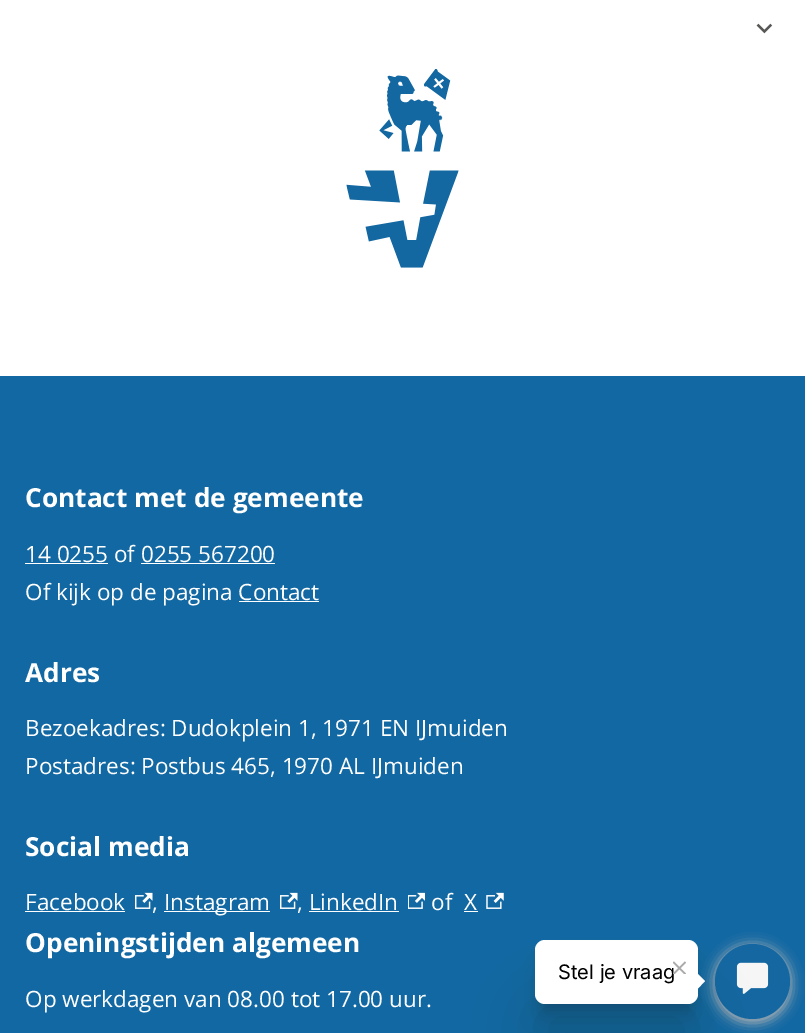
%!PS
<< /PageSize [805 1033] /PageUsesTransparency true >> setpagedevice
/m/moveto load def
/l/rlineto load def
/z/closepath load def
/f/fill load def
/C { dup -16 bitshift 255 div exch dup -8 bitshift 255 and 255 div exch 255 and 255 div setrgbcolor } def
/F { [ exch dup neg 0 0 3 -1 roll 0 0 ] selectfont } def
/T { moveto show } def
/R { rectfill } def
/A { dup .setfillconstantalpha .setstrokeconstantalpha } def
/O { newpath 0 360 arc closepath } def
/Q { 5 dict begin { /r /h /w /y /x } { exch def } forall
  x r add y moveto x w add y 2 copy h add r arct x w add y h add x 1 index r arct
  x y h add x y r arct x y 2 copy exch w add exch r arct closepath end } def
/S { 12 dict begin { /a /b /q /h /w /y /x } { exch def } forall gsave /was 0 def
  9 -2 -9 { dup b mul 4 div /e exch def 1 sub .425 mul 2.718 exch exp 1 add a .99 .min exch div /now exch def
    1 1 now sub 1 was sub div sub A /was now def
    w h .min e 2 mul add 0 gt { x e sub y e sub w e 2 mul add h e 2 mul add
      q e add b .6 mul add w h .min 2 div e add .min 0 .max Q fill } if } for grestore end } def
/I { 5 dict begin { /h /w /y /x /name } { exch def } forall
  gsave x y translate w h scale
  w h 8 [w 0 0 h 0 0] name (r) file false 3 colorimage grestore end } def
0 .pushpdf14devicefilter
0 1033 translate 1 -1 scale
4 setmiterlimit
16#FFFFFF C
0 0 805 1033 R
(1.rgb) 756 23 17 11 I
(2.rgb) 346 69 113 199 I
16#1268A2 C
0 376 805 657 R
/OpenSans-Bold 26.25 F
16#FFFFFF C
(Contact met de gemeente) 25 507 T
/OpenSans-Regular 22.5 F
(14 0255 of 0255 567200) 25 562 T
25 563 83 1 R
141 563 134 1 R
(Of kijk op de pagina Contact) 25 600 T
239 601 80 1 R
/OpenSans-Bold 26.25 F
(Adres) 25 682 T
/OpenSans-Regular 22.5 F
(Bezoekadres: Dudokplein 1, 1971 EN IJmuiden) 25 736 T
(Postadres: Postbus 465, 1970 AL IJmuiden) 25 774 T
/OpenSans-Bold 26.25 F
(Social media) 25 856 T
/OpenSans-Regular 22.5 F
(Facebook) 25 910 T
25 911 100 1 R
(3.rgb) 135 892 18 17 I
(,) 152 910 T
164 911 106 1 R
(Instagram) 164 910 T
(3.rgb) 280 892 18 17 I
(, LinkedIn) 297 910 T
(4.rgb) 408 892 17 17 I
(of) 431 910 T
(X) 464 910 T
464 911 14 1 R
(5.rgb) 486 892 18 17 I
309 911 90 1 R
/OpenSans-Bold 26.25 F
(Openingstijden algemeen) 25 952 T
/OpenSans-Regular 22.5 F
(Op werkdagen van 08.00 tot 17.00 uur.) 25 1007 T
16#B5B5B5 C
714 945 77 78 38.5 6 1 S
16#1467A1 C
752.5 981.5 37.5 O f
(7.rgb) 736 962 33 32 I
16#000000 C
540 1008 153 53 5 31 .15 S
540 968 153 53 5 13 .11 S
540 956 153 54 5 7 .09 S
540 951 153 54 5 4 .07 S
16#FFFFFF C
535 940 163 64 10 Q f
/Inter-Regular 20 F
16#000000 C
(Stel je vraag) 558 979 T
(6.rgb) 673 961 13 13 I
16#FFFFFF C
705 981 m -7.5 8 l 0 -15 l .5 0 l z f
.poppdf14devicefilter showpage
